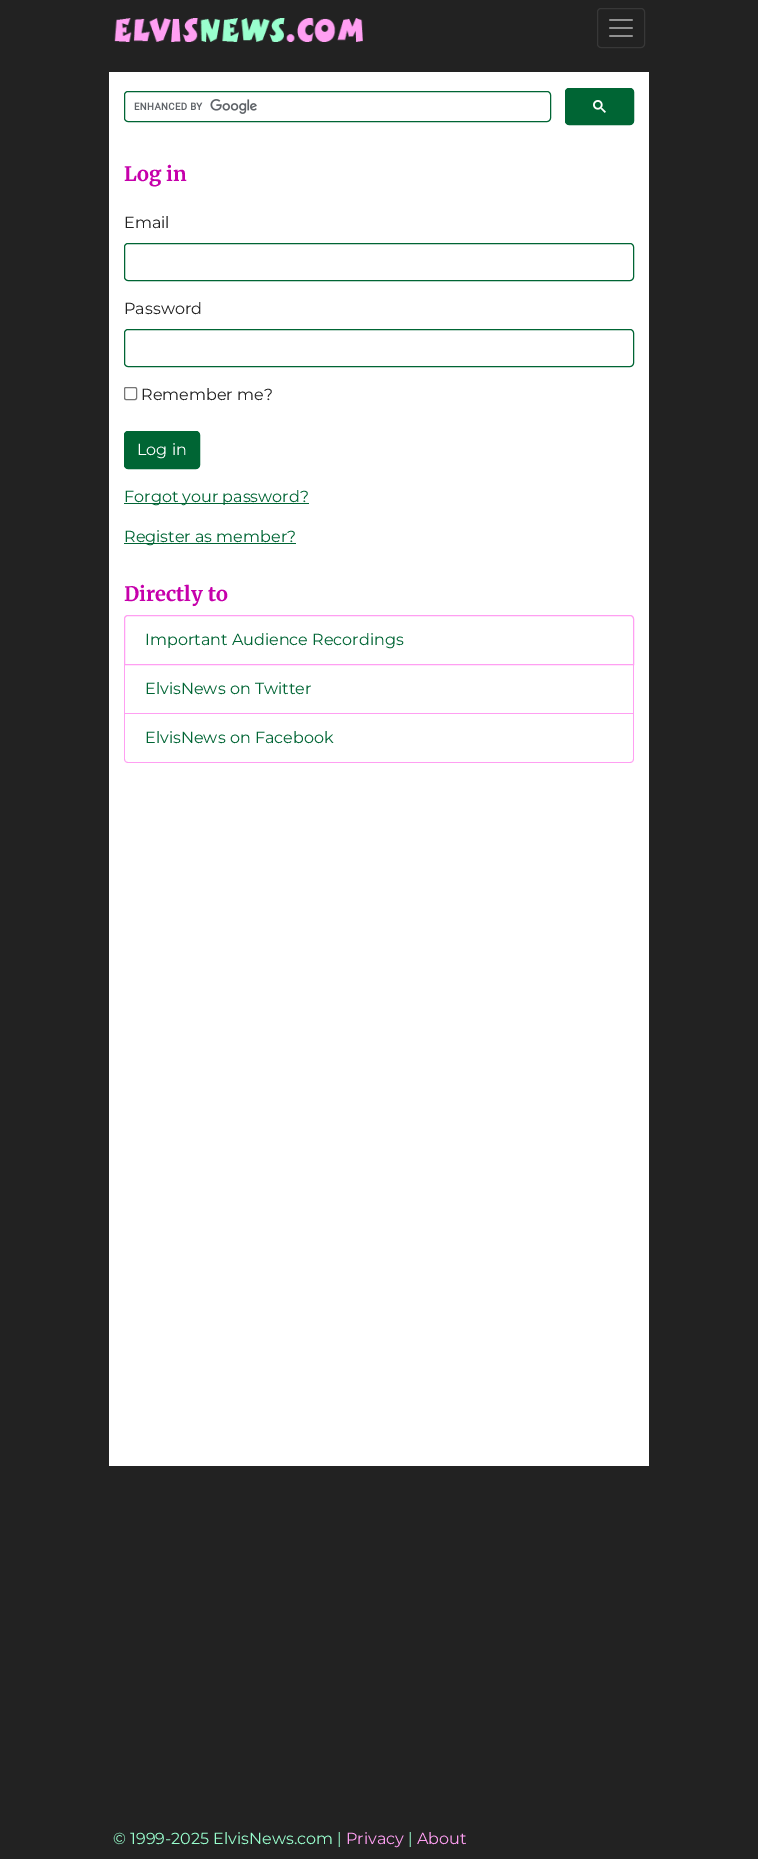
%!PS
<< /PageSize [758 1859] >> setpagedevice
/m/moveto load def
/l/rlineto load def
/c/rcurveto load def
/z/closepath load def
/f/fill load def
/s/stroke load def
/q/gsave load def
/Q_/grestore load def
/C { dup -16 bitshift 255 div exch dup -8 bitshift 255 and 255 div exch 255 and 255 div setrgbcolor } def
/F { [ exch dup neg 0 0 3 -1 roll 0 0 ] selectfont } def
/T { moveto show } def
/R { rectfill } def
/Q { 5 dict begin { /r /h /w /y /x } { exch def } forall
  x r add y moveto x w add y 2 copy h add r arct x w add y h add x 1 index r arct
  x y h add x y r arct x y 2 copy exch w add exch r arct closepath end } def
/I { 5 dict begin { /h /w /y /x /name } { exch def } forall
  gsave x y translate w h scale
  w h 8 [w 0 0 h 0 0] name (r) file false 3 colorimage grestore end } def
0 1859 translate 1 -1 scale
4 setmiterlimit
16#222222 C
0 0 758 1859 R
(1.rgb) 114 18 249 24 I
16#383838 C
597.5 8.5 47 39 3.5 Q s
(2.rgb) 609 19 24 18 I
16#FFFFFF C
109 72 540 1394 R
16#006534 C
124.5 91.5 426 30 3.5 Q s
(3.rgb) 134 99 123 15 I
565.5 88.5 68 36 3.5 Q q f Q_
s
(4.rgb) 593 100 13 13 I
/Merriweather-Light 20 F
16#C600AB C
(Log in) 124 181 T
/Montserrat-Regular 16 F
16#222222 C
(Email) 124 228 T
16#006534 C
124.5 243.5 509 37 3.5 Q s
16#222222 C
(Password) 124 314 T
16#006534 C
124.5 329.5 509 37 3.5 Q s
16#767676 C
124.5 387.5 12 12 1.5 Q s
16#222222 C
(Remember me?) 141 400 T
16#006534 C
124.5 431.5 75 37 3.5 Q q f Q_
s
16#FFFFFF C
(Log in) 137 455 T
16#006534 C
124 503 185 1 R
(Forgot your password?) 124 502 T
124 543 172 1 R
(Register as member?) 124 542 T
/Merriweather-Light 20 F
16#C600AB C
(Directly to) 124 601 T
16#FF9FF2 C
128 615.5 m 502 0 l 2 0 3.5 1.5 3.5 3.5 c 0 45.5 l -509 0 l 0 -45.5 l 0 -2 1.5 -3.5 3.5 -3.5 c z s
/Montserrat-Regular 16 F
16#006534 C
(Important Audience Recordings) 145 645 T
16#FF9FF2 C
633 665 1 49 R
124 713 510 1 R
124 665 1 49 R
16#006534 C
(ElvisNews on Twitter) 145 694 T
16#FF9FF2 C
124 714 m 510 0 l 0 45 l 0 2 -2 4 -4 4 c -502 0 l -2 0 -4 -2 -4 -4 c z 125 714 m 508 0 l 0 45 l 0 2 -1 3 -3 3 c -502 0 l -2 0 -3 -1 -3 -3 c z eofill
16#006534 C
(ElvisNews on Facebook) 145 743 T
16#99FFCE C
(© 1999-2025 ElvisNews.com |) 113 1844 T
16#FF9FF2 C
(Privacy) 346 1844 T
16#99FFCE C
(|) 408 1844 T
16#FF9FF2 C
(About) 417 1844 T
showpage
